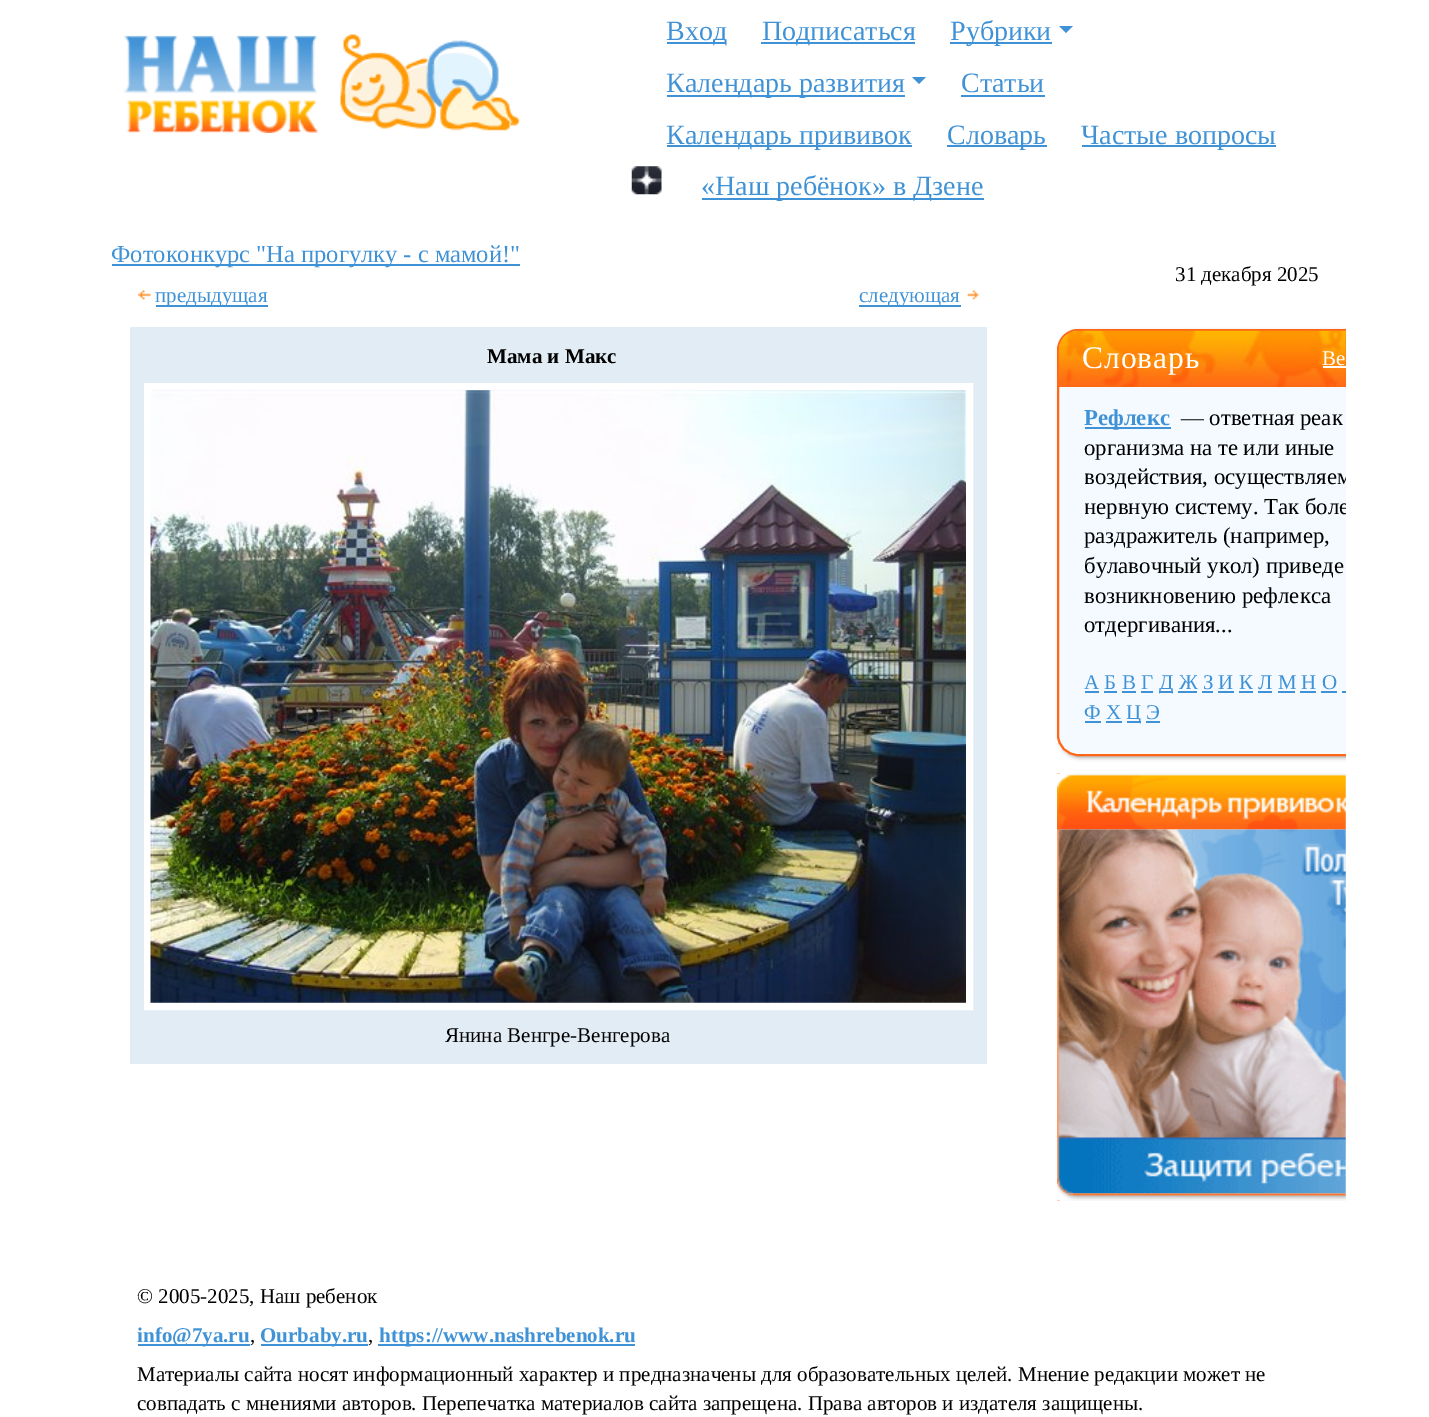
%!PS
<< /PageSize [1429 1417] /PageUsesTransparency true >> setpagedevice
/m/moveto load def
/l/rlineto load def
/c/rcurveto load def
/z/closepath load def
/f/fill load def
/s/stroke load def
/q/gsave load def
/Q_/grestore load def
/w/setlinewidth load def
/C { dup -16 bitshift 255 div exch dup -8 bitshift 255 and 255 div exch 255 and 255 div setrgbcolor } def
/F { [ exch dup neg 0 0 3 -1 roll 0 0 ] selectfont } def
/T { moveto show } def
/R { rectfill } def
/A { dup .setfillconstantalpha .setstrokeconstantalpha } def
/Q { 5 dict begin { /r /h /w /y /x } { exch def } forall
  x r add y moveto x w add y 2 copy h add r arct x w add y h add x 1 index r arct
  x y h add x y r arct x y 2 copy exch w add exch r arct closepath end } def
/S { 12 dict begin { /a /b /q /h /w /y /x } { exch def } forall gsave /was 0 def
  9 -2 -9 { dup b mul 4 div /e exch def 1 sub .425 mul 2.718 exch exp 1 add a .99 .min exch div /now exch def
    1 1 now sub 1 was sub div sub A /was now def
    w h .min e 2 mul add 0 gt { x e sub y e sub w e 2 mul add h e 2 mul add
      q e add b .6 mul add w h .min 2 div e add .min 0 .max Q fill } if } for grestore end } def
/I { 5 dict begin { /h /w /y /x /name } { exch def } forall
  gsave x y translate w h scale
  w h 8 [w 0 0 h 0 0] name (r) file false 3 colorimage grestore end } def
0 .pushpdf14devicefilter
0 1417 translate 1 -1 scale
4 setmiterlimit
16#FFFFFF C
0 0 1429 1417 R
16#FF9E6B C
1057 773 3 1 R
(1.rgb) 124 34 397 99 I
16#4092D6 C
667 42 59 2 R
/LiberationSerif-Regular 28 F
(Вход) 666 40 T
761 42 154 2 R
(Подписаться) 762 40 T
950 42 102 2 R
(Рубрики) 950 40 T
1059 26 m 14 0 l -7 7 l z f
667 95 238 2 R
(Календарь развития) 666 92 T
912 77 m 14 0 l -7 7 l z f
(Статьи) 961 92 T
961 95 84 2 R
667 145 245 2 R
(Календарь прививок) 666 144 T
947 145 100 2 R
(Словарь) 947 144 T
1082 145 194 2 R
(Частые вопросы) 1081 144 T
(2.rgb) 631 166 31 29 I
702 198 282 2 R
(«Наш ребёнок» в Дзене) 701 195 T
112 264 408 2 R
/LiberationSerif-Regular 24.5 F
(Фотоконкурс "На прогулку - с мамой!") 111 262 T
(3.rgb) 138 290 13 10 I
156 305 112 2 R
/LiberationSerif-Regular 21 F
(предыдущая) 155 302 T
(4.rgb) 967 290 12 10 I
859 305 102 2 R
(следующая) 859 302 T
16#E2ECF4 C
130 327 857 737 R
/LiberationSerif-Bold 21 F
16#000000 C
(Мама и Макс) 487 363 T
16#FFFFFF C
7 w
147.5 386.5 822 620 rectstroke
(5.rgb) 150 390 816 613 I
/LiberationSerif-Regular 21 F
16#000000 C
(Янина Венгре-Венгерова) 445 1042 T
(31 декабря 2025) 1175 281 T
q
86 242 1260 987 rectclip
1059 331 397 427 21 2 .3 S
Q_
16#F4FAFF C
1078 329 m 268 0 l 0 427 l -268 0 l -11.5 0 -21 -9.5 -21 -21 c 0 -385 l 0 -11.5 9.5 -21 21 -21 c z f
q
86 242 1260 987 rectclip
16#FF6617 C
2 w
1058 330 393 425 20 Q s
Q_
16#FF6617 C
1078 331 m 268 0 l 0 56 l -287 0 l 0 -37 l 0 -10.5 8.5 -19 19 -19 c z f
(6.rgb) 1058 330 288 57 I
/LiberationSerif-Regular 31.5 F
16#FFFFFF C
1082 368 m 1 0 (Словарь) ashow
/LiberationSerif-Regular 21 F
(Ве) 1322 365 T
1323 366 23 2 R
16#4092D6 C
1085 427 86 2 R
/LiberationSerif-Bold 22.75 F
(Рефлекс) 1084 425 T
/LiberationSerif-Regular 22.75 F
16#000000 C
(— ответная реак) 1181 425 T
(организма на те или иные) 1084 455 T
q
1085 404 261 265 rectclip
(воздействия, осуществляем) 1084 484 T
(нервную систему. Так боле) 1084 514 T
Q_
(раздражитель \(например,) 1084 543 T
(булавочный укол\) приведе) 1084 573 T
(возникновению рефлекса) 1084 603 T
(отдергивания...) 1084 632 T
/LiberationSerif-Regular 21 F
16#4092D6 C
(А Б В Г) 1084 689 T
1085 691 14 2 R
1159 691 14 2 R
(Д Ж З И К Л М Н О) 1159 689 T
1104 691 13 2 R
1122 691 14 2 R
1141 691 12 2 R
1178 691 19 2 R
1202 691 11 2 R
1218 691 16 2 R
1239 691 14 2 R
1258 691 14 2 R
1278 691 17 2 R
1300 691 16 2 R
1321 691 16 2 R
1342 691 4 2 R
(Ф Х) 1084 719 T
1085 721 16 2 R
1127 721 14 2 R
(Ц Э) 1126 719 T
1106 721 16 2 R
1146 721 14 2 R
16#F4FAFF C
1060 774 286 427 R
16#FB9C6B C
1057 829 3 372 R
(7.rgb) 1057 773 289 57 I
(8.rgb) 1058 829 288 365 I
(9.rgb) 1057 1179 289 22 I
16#000000 C
(© 2005-2025, Наш ребенок) 137 1303 T
16#4092D6 C
138 1344 112 2 R
/LiberationSerif-Bold 21 F
(info@7ya.ru) 137 1342 T
/LiberationSerif-Regular 21 F
16#000000 C
(,) 250 1342 T
16#4092D6 C
261 1344 107 2 R
/LiberationSerif-Bold 21 F
(Ourbaby.ru) 260 1342 T
/LiberationSerif-Regular 21 F
16#000000 C
(,) 368 1342 T
16#4092D6 C
378 1344 257 2 R
/LiberationSerif-Bold 21 F
(https://www.nashrebenok.ru) 379 1342 T
/LiberationSerif-Regular 21 F
16#000000 C
(Материалы сайта носят информационный характер и предназначены для образовательных целей. Мнение редакции может не) 137 1381 T
(совпадать с мнениями авторов. Перепечатка материалов сайта запрещена. Права авторов и издателя защищены.) 137 1410 T
.poppdf14devicefilter showpage
